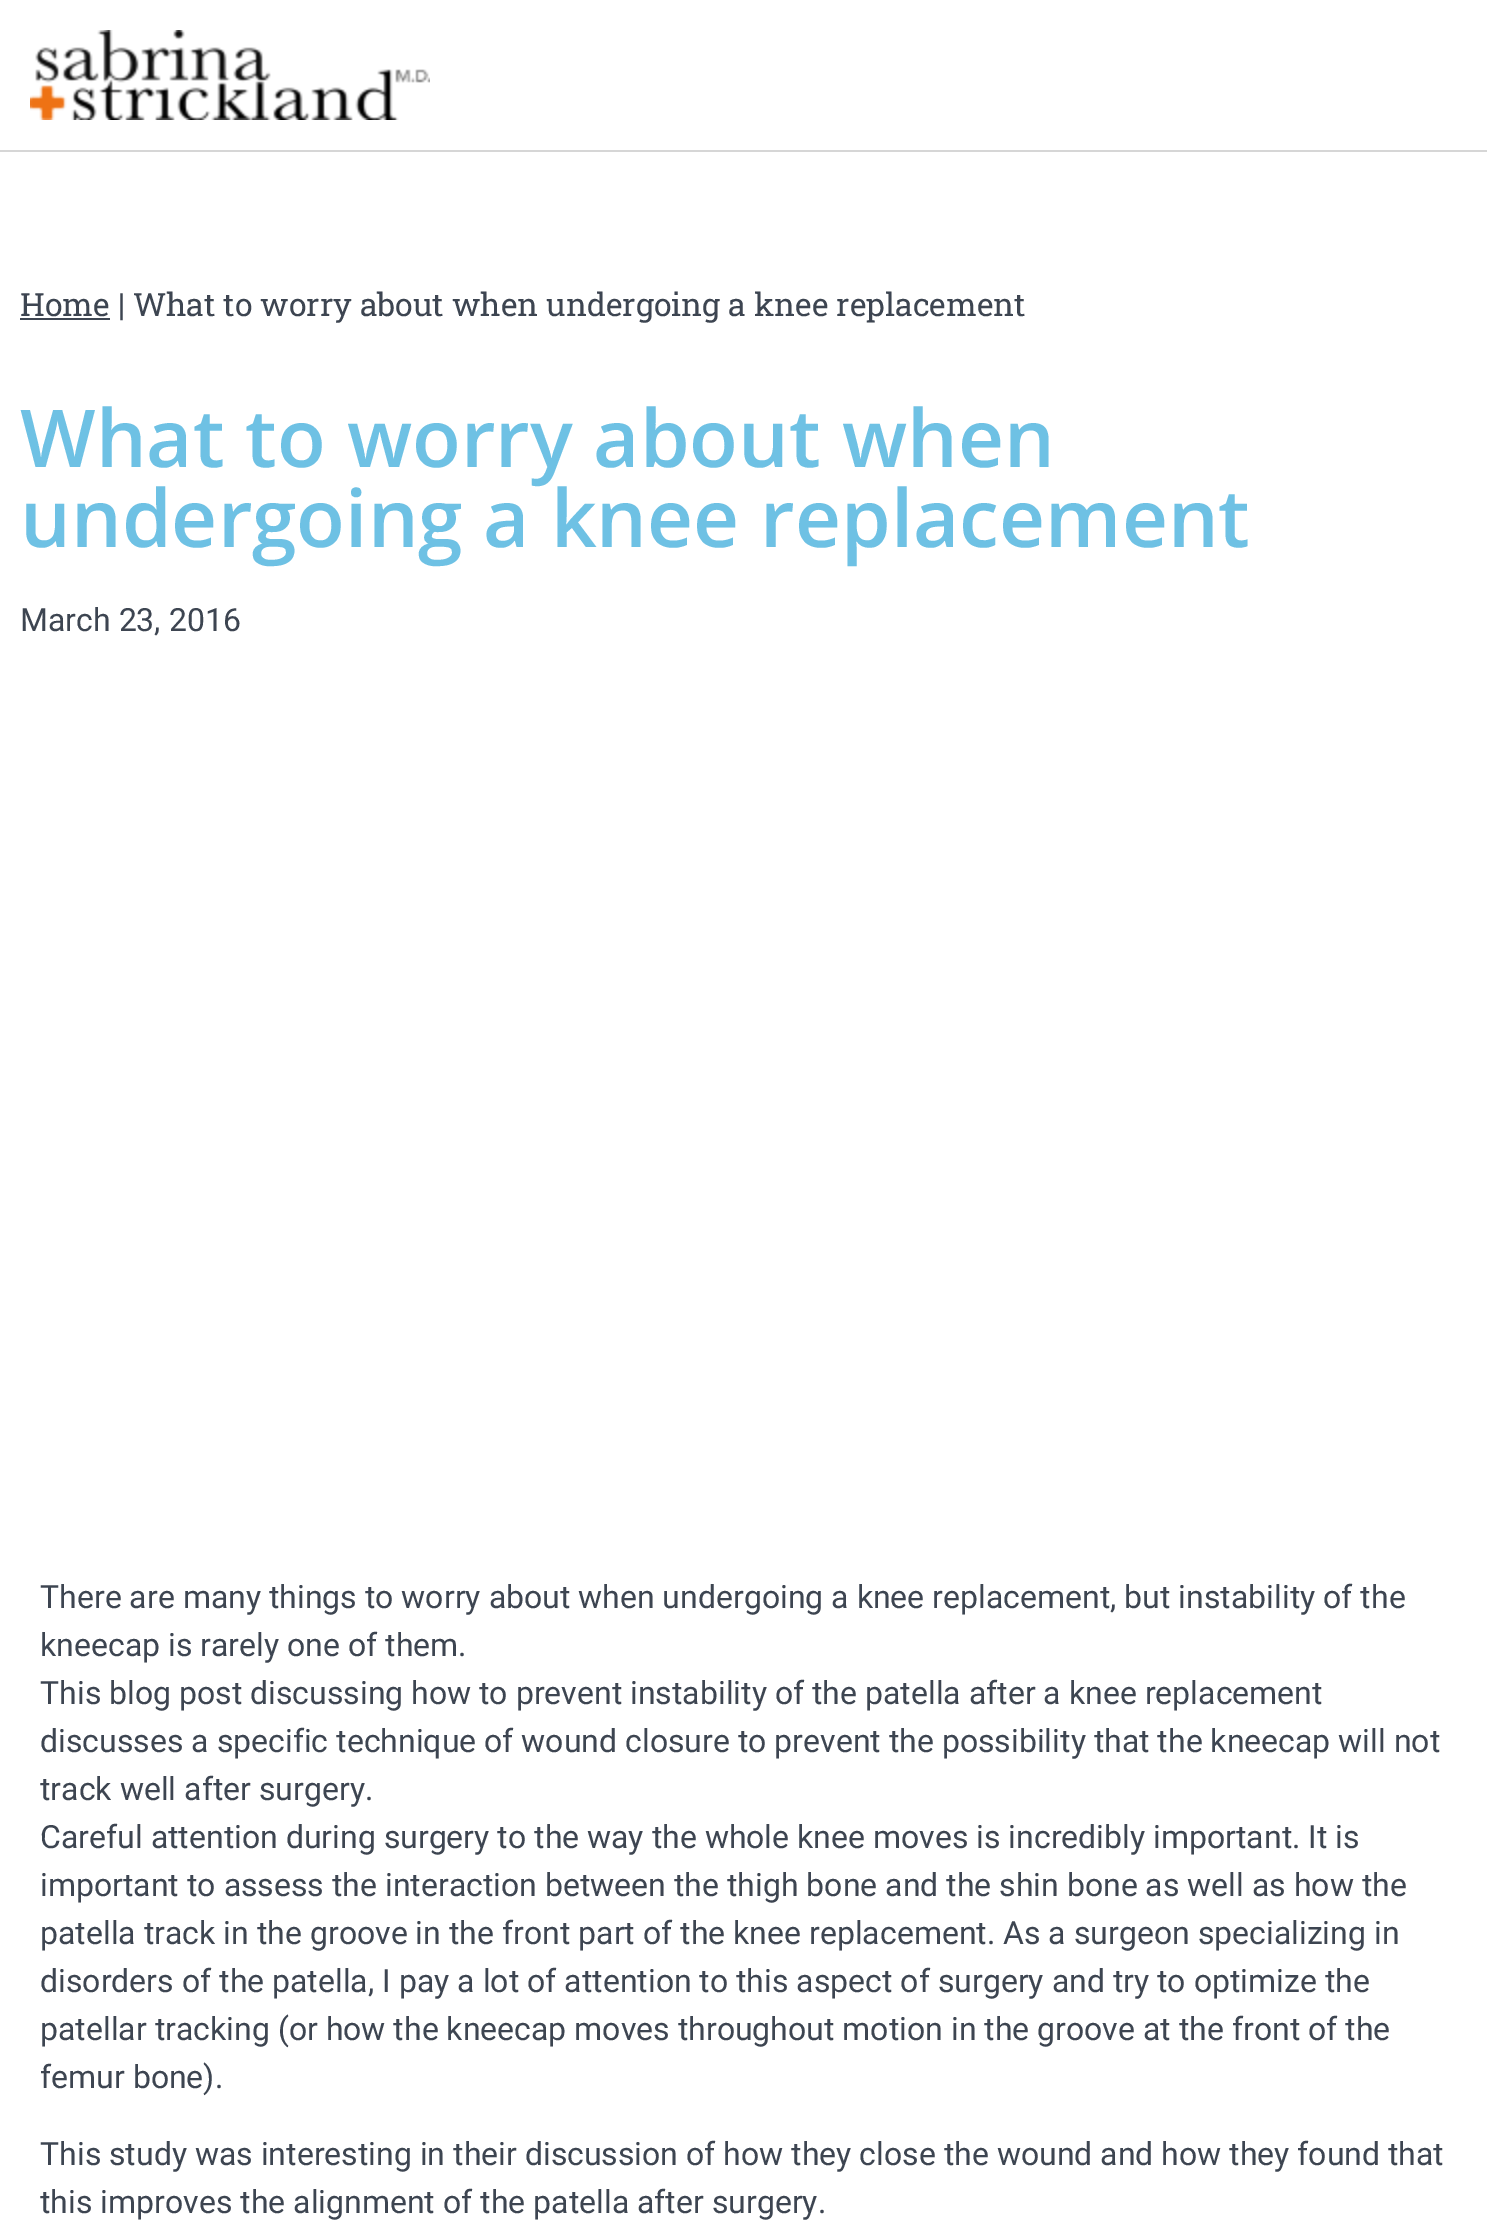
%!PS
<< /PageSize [1487 2233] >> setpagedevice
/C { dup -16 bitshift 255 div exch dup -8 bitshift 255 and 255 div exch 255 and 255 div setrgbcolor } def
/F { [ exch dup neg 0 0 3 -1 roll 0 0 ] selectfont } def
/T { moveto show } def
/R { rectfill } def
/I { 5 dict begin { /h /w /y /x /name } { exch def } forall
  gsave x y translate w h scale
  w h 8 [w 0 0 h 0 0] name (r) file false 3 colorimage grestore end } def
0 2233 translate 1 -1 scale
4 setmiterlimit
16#FFFFFF C
0 0 1487 2233 R
16#D6D6D6 C
0 150 1487 2 R
(1.rgb) 30 30 400 90 I
16#3D4551 C
20 318 90 2 R
/RobotoSlab-Regular 32 F
(Home | What to worry about when undergoing a knee replacement) 20 316 T
/OpenSans-SemiBold 80 F
16#6EC1E4 C
(What to worry about when) 20 467 T
(undergoing a knee replacement) 20 547 T
/Roboto-Regular 32 F
16#3D4551 C
(March 23, 2016) 20 631 T
(There are many things to worry about when undergoing a knee replacement, but instability of the) 40 1608 T
(kneecap is rarely one of them.) 40 1656 T
(This blog post discussing how to prevent instability of the patella after a knee replacement) 40 1704 T
(discusses a specific technique of wound closure to prevent the possibility that the kneecap will not) 40 1752 T
(track well after surgery.) 40 1800 T
(Careful attention during surgery to the way the whole knee moves is incredibly important. It is) 40 1848 T
(important to assess the interaction between the thigh bone and the shin bone as well as how the) 40 1896 T
(patella track in the groove in the front part of the knee replacement. As a surgeon specializing in) 40 1944 T
(disorders of the patella, I pay a lot of attention to this aspect of surgery and try to optimize the) 40 1992 T
(patellar tracking \(or how the kneecap moves throughout motion in the groove at the front of the) 40 2040 T
(femur bone\).) 40 2088 T
(This study was interesting in their discussion of how they close the wound and how they found that) 40 2165 T
(this improves the alignment of the patella after surgery.) 40 2213 T
showpage
